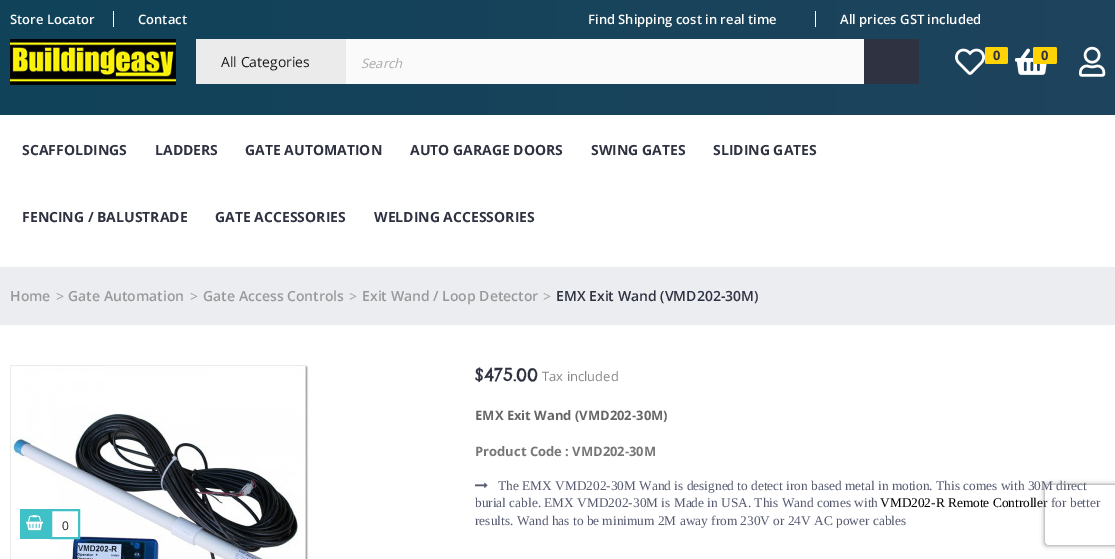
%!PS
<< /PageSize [1115 559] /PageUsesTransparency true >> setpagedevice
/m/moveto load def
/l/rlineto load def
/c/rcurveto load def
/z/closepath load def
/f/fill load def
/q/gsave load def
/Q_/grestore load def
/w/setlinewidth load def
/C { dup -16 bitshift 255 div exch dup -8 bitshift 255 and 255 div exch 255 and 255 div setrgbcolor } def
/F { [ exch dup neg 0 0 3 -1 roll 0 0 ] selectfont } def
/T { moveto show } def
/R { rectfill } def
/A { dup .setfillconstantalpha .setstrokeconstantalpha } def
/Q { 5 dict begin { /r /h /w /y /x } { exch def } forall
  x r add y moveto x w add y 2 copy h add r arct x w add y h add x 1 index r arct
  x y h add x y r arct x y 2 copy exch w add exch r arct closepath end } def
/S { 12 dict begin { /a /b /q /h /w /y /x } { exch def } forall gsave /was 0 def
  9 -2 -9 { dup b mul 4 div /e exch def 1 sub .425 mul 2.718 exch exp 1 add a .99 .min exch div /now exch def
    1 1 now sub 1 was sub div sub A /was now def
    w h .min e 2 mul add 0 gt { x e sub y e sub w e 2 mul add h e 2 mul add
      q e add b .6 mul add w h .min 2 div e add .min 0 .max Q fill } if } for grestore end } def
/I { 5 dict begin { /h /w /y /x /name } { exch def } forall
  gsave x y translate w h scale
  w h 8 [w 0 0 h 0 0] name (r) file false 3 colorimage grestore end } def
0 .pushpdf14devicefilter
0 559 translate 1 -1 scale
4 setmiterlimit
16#FFFFFF C
0 0 1115 559 R
q 0 0 m 1115 0 l 0 39 l -1115 0 l z clip newpath
<< /ShadingType 2 /ColorSpace /DeviceRGB /Coords [-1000 20 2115 19] /Extend [true true] /Function << /FunctionType 2 /Domain [0 1] /C0 [.008 .255 .345] /C1 [.173 .267 .369] /N 1 >> >> shfill Q_
/OpenSans-SemiBold 13 F
(Store Locator) 10 24 T
113 11 1 16 R
(Contact) 138 24 T
(Find Shipping cost in real time) 588 24 T
815 11 1 16 R
(All prices GST included) 840 24 T
q 0 39 m 1115 0 l 0 76 l -1115 0 l z clip newpath
<< /ShadingType 2 /ColorSpace /DeviceRGB /Coords [-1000 77 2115 77] /Extend [true true] /Function << /FunctionType 2 /Domain [0 1] /C0 [.008 .255 .345] /C1 [.173 .267 .369] /N 1 >> >> shfill Q_
(1.rgb) 10 39 166 46 I
16#EBEBEB C
196 39 150 45 R
/OpenSans-Regular 14 F
16#191A1C C
(All Categories) 221 67 T
16#FAFAFA C
346 39 518 45 R
/OpenSans-Italic 13 F
16#AAAAAA C
(Search) 361 68 T
16#2F3241 C
864 39 55 45 R
(2.rgb) 955 48 30 27 I
16#FFD304 C
985 47 23 17 2 Q f
/OpenSans-Bold 13 F
16#2F3241 C
(0) 993 60 T
(3.rgb) 1015 48 32 27 I
16#FFD304 C
1033 47 24 17 2 Q f
16#2F3241 C
(0) 1041 60 T
(4.rgb) 1079 46 27 31 I
/OpenSans-Bold 14 F
(SCAFFOLDINGS) 22 155 T
(LADDERS) 155 155 T
(GATE AUTOMATION) 245 155 T
(AUTO GARAGE DOORS) 410 155 T
(SWING GATES) 591 155 T
(SLIDING GATES) 713 155 T
(FENCING / BALUSTRADE) 22 222 T
(GATE ACCESSORIES) 215 222 T
(WELDING ACCESSORIES) 374 222 T
16#ECEDF1 C
0 267 1115 58 R
/OpenSans-SemiBold 14 F
16#999999 C
(Home) 10 301 T
/LiberationSerif-Bold 14 F
(>) 56 301 T
/OpenSans-SemiBold 14 F
(Gate Automation) 68 301 T
/LiberationSerif-Bold 14 F
(>) 190 301 T
/OpenSans-SemiBold 14 F
(Gate Access Controls) 203 301 T
/LiberationSerif-Bold 14 F
(>) 349 301 T
/OpenSans-SemiBold 14 F
(Exit Wand / Loop Detector) 362 301 T
/LiberationSerif-Bold 14 F
(>) 543 301 T
/OpenSans-SemiBold 14 F
16#2F3241 C
(EMX Exit Wand \(VMD202-30M\)) 556 301 T
(5.rgb) 10 365 299 194 I
/ChelseaMarket-Regular 18 F
($475.00) 475 381 T
/OpenSans-Regular 13 F
16#878787 C
(Tax included) 542 381 T
/OpenSans-Bold 13 F
16#656667 C
(EMX Exit Wand \(VMD202-30M\)) 475 420 T
16#777777 C
(Product Code : VMD202-30M) 475 456 T
(6.rgb) 475 482 13 7 I
/LiberationSerif-Regular 13.35 F
16#565A71 C
(The EMX VMD202-30M Wand is designed to detect iron based metal in motion. This comes with 30M direct) 498 490 T
(burial cable. EMX VMD202-30M is Made in USA. This Wand comes with) 475 507 T
16#000000 C
(VMD202-R Remote Controller) 880 507 T
16#565A71 C
(for better) 1051 507 T
(results. Wand has to be minimum 2M away from 230V or 24V AC power cables) 475 525 T
16#40C1C7 C
20 509 30 30 R
(7.rgb) 26 515 18 16 I
16#FFFFFF C
67 533 11 4 R
16#40C1C7 C
2 w
51 510 28 28 rectstroke
/OpenSans-Regular 12 F
16#222222 C
(0) 62 530 T
q
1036 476 m 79 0 l 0 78 l -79 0 l z 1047 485 m 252 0 l 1 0 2 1 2 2 c 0 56 l 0 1 -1 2 -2 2 c -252 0 l -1 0 -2 -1 -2 -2 c 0 -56 l 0 -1 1 -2 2 -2 c z eoclip newpath
16#808080 C
1045 485 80 60 2 2.5 1 S
Q_
.poppdf14devicefilter showpage
